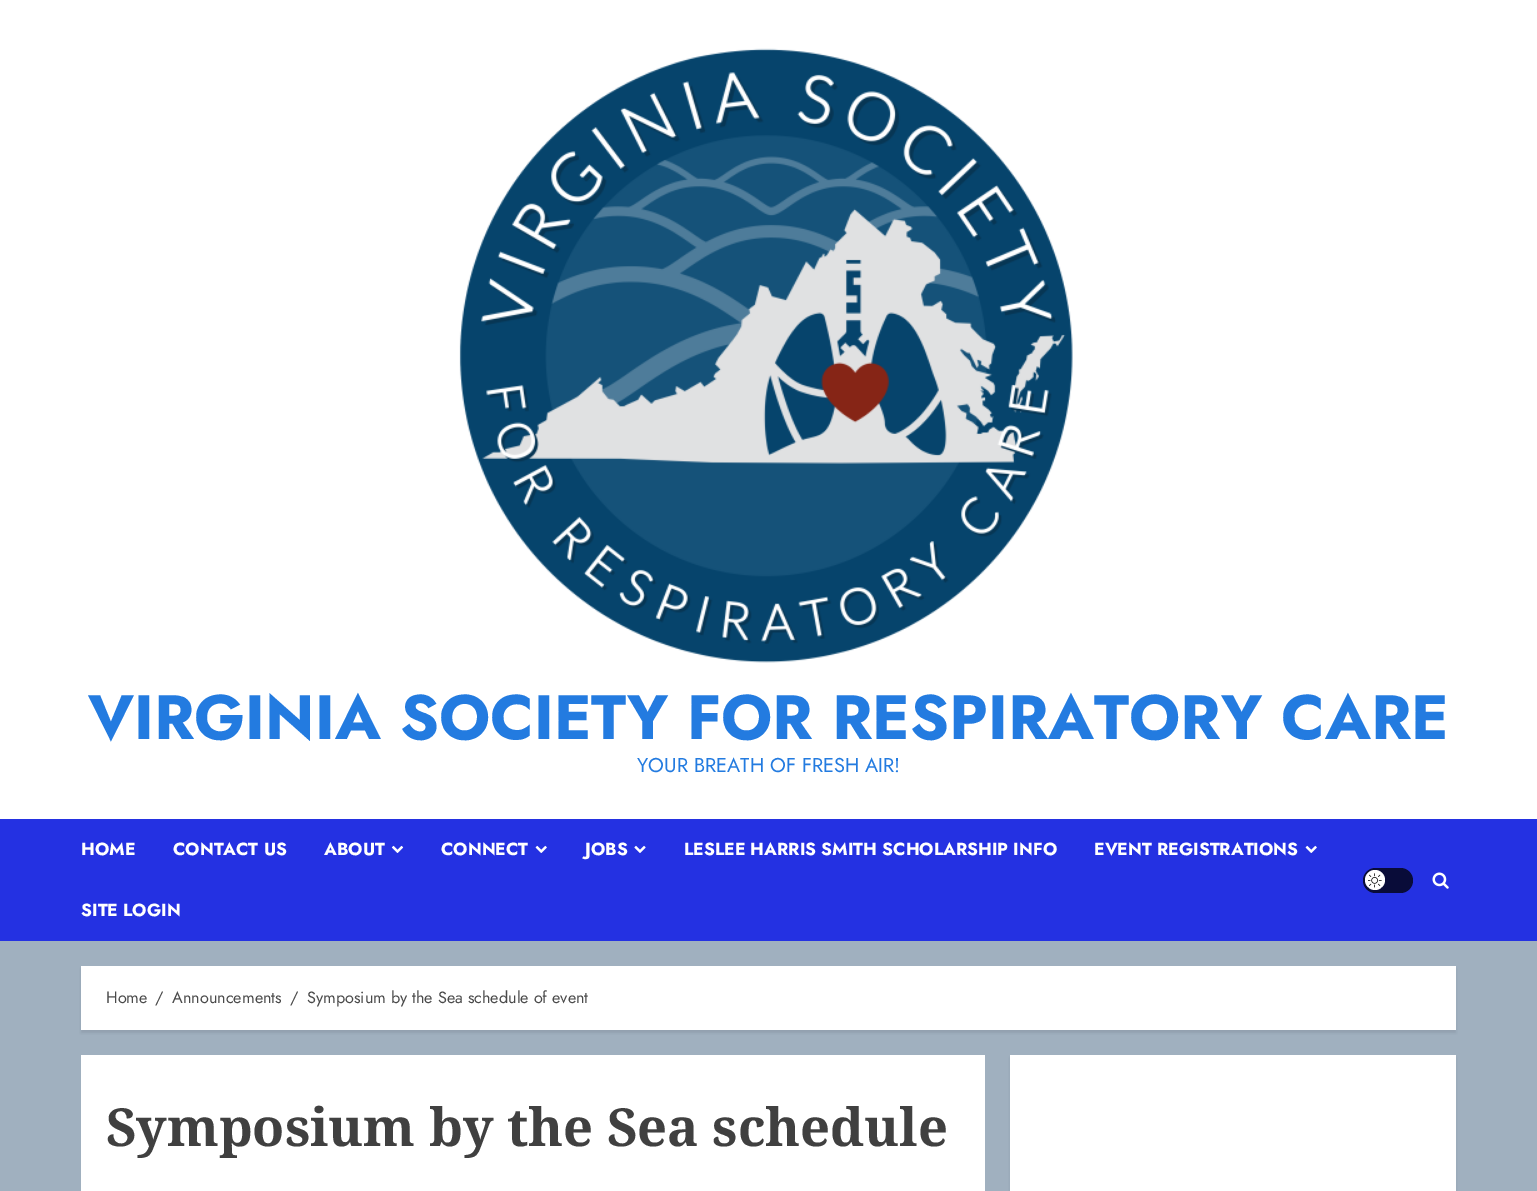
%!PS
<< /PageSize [1537 1191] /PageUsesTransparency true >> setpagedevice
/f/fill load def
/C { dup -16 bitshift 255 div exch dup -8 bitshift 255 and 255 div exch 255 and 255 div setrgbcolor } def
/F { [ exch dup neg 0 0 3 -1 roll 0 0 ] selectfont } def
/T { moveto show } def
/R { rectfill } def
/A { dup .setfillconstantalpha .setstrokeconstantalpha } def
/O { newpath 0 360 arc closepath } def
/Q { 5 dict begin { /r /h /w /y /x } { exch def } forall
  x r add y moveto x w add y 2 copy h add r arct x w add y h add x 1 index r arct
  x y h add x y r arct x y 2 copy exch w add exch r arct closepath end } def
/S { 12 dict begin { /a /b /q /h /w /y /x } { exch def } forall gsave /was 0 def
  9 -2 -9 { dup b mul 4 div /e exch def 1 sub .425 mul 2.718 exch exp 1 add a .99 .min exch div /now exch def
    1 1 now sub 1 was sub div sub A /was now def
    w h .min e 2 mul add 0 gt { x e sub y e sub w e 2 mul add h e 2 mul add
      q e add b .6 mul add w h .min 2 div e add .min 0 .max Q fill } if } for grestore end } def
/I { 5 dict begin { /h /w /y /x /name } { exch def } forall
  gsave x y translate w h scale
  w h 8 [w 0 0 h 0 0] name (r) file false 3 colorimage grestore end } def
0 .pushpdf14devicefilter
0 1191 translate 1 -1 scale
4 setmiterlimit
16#A0B0BF C
0 0 1537 1191 R
16#FFFFFF C
0 0 1537 819 R
(1.rgb) 459 48 614 615 I
/Jost-Bold 62.5 F
16#237BE0 C
(VIRGINIA SOCIETY FOR RESPIRATORY CARE) 88 739 T
/Jost-Regular 20 F
(YOUR BREATH OF FRESH AIR!) 637 772 T
16#2431E2 C
0 819 1537 122 R
/Jost-Bold 17.5 F
16#FFFFFF C
(HOME) 81 855 T
(CONTACT US) 173 855 T
(ABOUT) 324 855 T
(2.rgb) 391 845 13 8 I
(CONNECT) 441 855 T
(3.rgb) 535 845 12 8 I
(JOBS) 585 855 T
(4.rgb) 634 845 12 8 I
(LESLEE HARRIS SMITH SCHOLARSHIP INFO) 684 855 T
(EVENT REGISTRATIONS) 1094 855 T
(3.rgb) 1305 845 12 8 I
(SITE LOGIN) 81 916 T
16#090C39 C
1363 868 50 25 12.5 Q f
16#FFFFFF C
1375 880 10 O f
(5.rgb) 1368 873 14 15 I
(6.rgb) 1432 872 17 17 I
16#000000 C
81 969 1375 64 0 1 .08 S
16#FFFFFF C
81 966 1375 64 R
/Jost-Regular 16.25 F
16#4A4A4A C
(Home) 106 1003 T
(/) 155 1003 T
(Announcements) 172 1003 T
(/) 290 1003 T
(Symposium by the Sea schedule of event) 307 1003 T
16#FFFFFF C
81 1055 904 136 R
/NotoSerif-Bold 52.5 F
16#404040 C
(Symposium by the Sea schedule) 106 1146 T
16#000000 C
1010 1058 446 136 0 1 .08 S
16#FFFFFF C
1010 1055 446 136 R
.poppdf14devicefilter showpage
